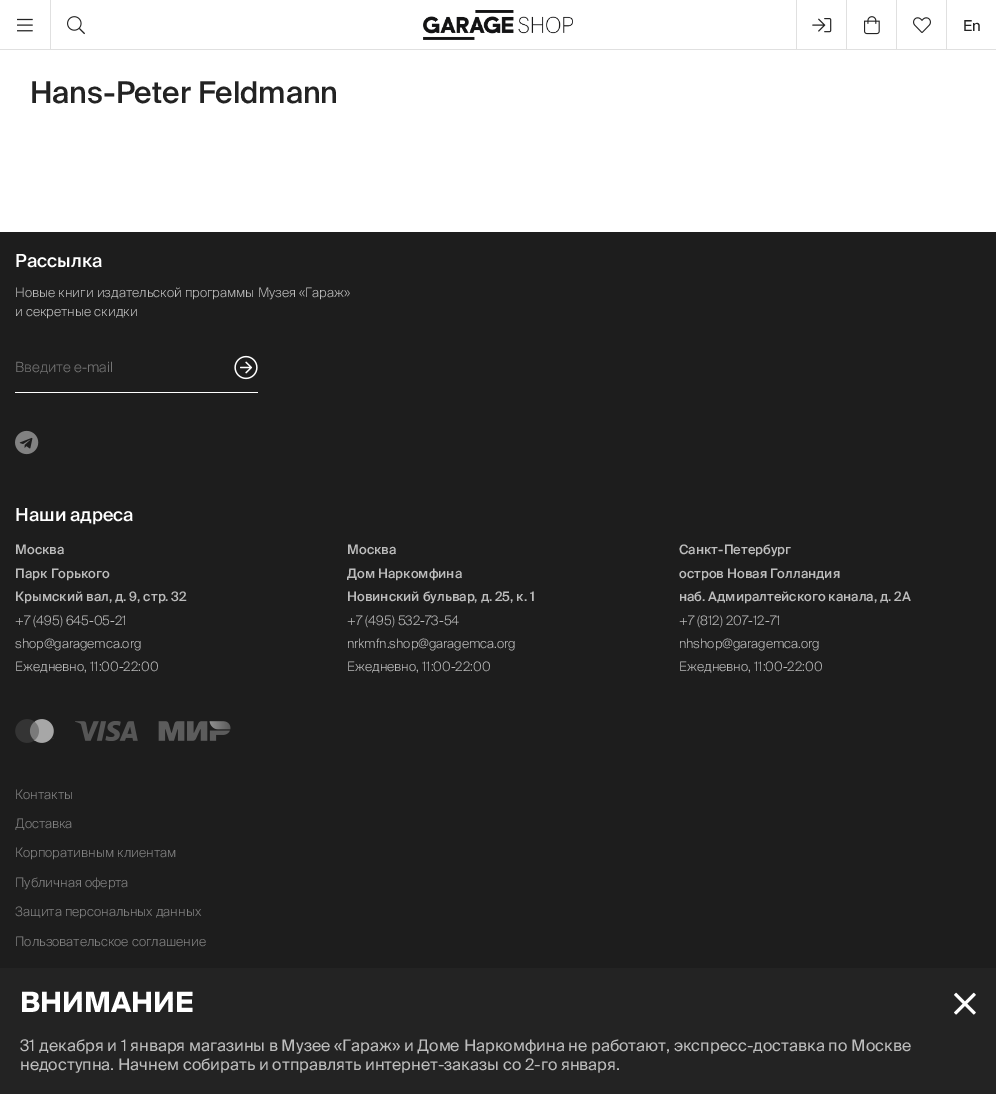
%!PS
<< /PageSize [996 1094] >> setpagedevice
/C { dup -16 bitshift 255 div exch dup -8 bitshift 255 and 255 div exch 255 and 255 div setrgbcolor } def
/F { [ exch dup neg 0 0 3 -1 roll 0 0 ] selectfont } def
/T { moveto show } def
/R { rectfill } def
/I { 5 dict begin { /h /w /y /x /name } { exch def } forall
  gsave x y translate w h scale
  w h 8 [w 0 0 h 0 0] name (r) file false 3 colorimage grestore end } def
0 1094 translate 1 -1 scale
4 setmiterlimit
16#FFFFFF C
0 0 996 1094 R
16#E0E0E0 C
0 49 996 1 R
(1.rgb) 17 18 16 14 I
50 0 1 50 R
(2.rgb) 67 16 18 19 I
(3.rgb) 423 10 150 30 I
796 0 1 50 R
(4.rgb) 812 18 20 15 I
846 0 1 50 R
(5.rgb) 864 16 16 19 I
896 0 1 50 R
(6.rgb) 913 17 18 16 I
946 0 1 50 R
/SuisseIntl-Regular 15 F
16#232323 C
(En) 963 31 T
/SuisseIntl-Medium 30 F
(Hans-Peter Feldmann) 30 103 T
16#1D1D1D C
0 232 996 736 R
/SuisseIntl-Medium 18 F
16#FFFFFF C
(Рассылка) 15 267 T
/SuisseIntl-Light 13 F
16#BDBDBD C
(Новые книги издательской программы Музея «Гараж») 15 297 T
(и секретные скидки) 15 316 T
16#FFFFFF C
15 392 243 1 R
/SuisseIntl-Light 14 F
16#757575 C
(Введите e-mail) 15 372 T
(7.rgb) 234 355 24 25 I
(8.rgb) 15 430 24 25 I
/SuisseIntl-Medium 18 F
16#FFFFFF C
(Наши адреса) 15 521 T
/SuisseIntl-Medium 13 F
16#BDBDBD C
(Москва) 15 554 T
(Парк Горького) 15 578 T
(Крымский вал, д. 9, стр. 32) 15 601 T
/SuisseIntl-Light 13 F
(+7 \(495\) 645-05-21) 15 625 T
(shop@garagemca.org) 15 648 T
(Ежедневно, 11:00-22:00) 15 671 T
/SuisseIntl-Medium 13 F
(Москва) 347 554 T
(Дом Наркомфина) 347 578 T
(Новинский бульвар, д. 25, к. 1) 347 601 T
/SuisseIntl-Light 13 F
(+7 \(495\) 532-73-54) 347 625 T
(nrkmfn.shop@garagemca.org) 347 648 T
(Ежедневно, 11:00-22:00) 347 671 T
/SuisseIntl-Medium 13 F
(Санкт-Петербург) 679 554 T
(остров Новая Голландия) 679 578 T
(наб. Адмиралтейского канала, д. 2А) 679 601 T
/SuisseIntl-Light 13 F
(+7 \(812\) 207-12-71) 679 625 T
(nhshop@garagemca.org) 679 648 T
(Ежедневно, 11:00-22:00) 679 671 T
(9.rgb) 15 719 39 24 I
(10.rgb) 75 721 63 20 I
(11.rgb) 158 721 73 20 I
16#828282 C
(Контакты) 15 799 T
(Доставка) 15 828 T
(Корпоративным клиентам) 15 857 T
(Публичная оферта) 15 887 T
(Защита персональных данных) 15 916 T
(Пользовательское соглашение) 15 946 T
16#232323 C
0 968 996 126 R
/SuisseIntl-Bold 28 F
16#FFFFFF C
(ВНИМАНИЕ) 20 1012 T
(12.rgb) 954 992 22 23 I
/SuisseIntl-Regular 16 F
16#BDBDBD C
(31 декабря и 1 января магазины в Музее «Гараж» и Доме Наркомфина не работают, экспресс-доставка по Москве) 20 1051 T
(недоступна. Начнем собирать и отправлять интернет-заказы со 2-го января.) 20 1070 T
showpage
